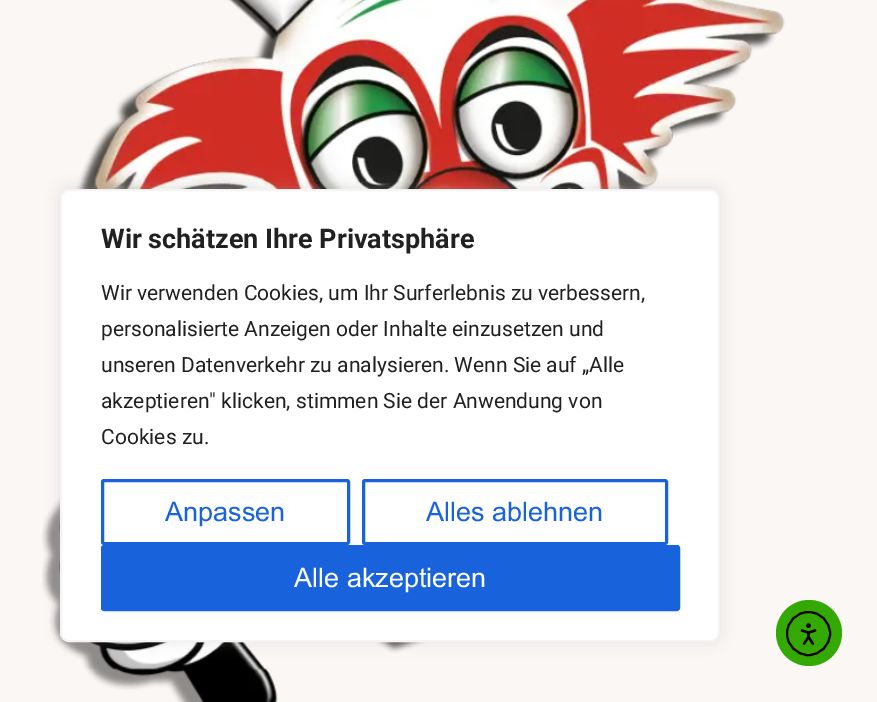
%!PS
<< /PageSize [877 702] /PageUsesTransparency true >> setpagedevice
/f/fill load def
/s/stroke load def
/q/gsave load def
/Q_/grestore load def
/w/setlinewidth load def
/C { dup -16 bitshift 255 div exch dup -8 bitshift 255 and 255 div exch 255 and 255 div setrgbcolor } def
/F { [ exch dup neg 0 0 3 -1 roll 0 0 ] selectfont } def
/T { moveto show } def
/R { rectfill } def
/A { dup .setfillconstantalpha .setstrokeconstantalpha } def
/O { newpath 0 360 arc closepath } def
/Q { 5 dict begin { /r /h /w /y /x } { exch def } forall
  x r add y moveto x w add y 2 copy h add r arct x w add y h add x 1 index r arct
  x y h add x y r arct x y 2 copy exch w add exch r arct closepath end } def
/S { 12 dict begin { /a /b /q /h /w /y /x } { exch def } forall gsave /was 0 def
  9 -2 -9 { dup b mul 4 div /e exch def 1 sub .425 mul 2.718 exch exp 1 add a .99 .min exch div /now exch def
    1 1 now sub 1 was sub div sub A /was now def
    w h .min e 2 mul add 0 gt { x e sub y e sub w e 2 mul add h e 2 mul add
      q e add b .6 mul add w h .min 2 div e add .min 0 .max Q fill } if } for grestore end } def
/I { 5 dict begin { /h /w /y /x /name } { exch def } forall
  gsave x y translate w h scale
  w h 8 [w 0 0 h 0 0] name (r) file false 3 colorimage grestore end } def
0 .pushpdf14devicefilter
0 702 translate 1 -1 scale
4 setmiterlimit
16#FBF7F5 C
0 0 877 702 R
(1.rgb) 42 0 743 702 I
16#ACABAB C
60 188 660 453 9 7.5 .3 S
16#FFFFFF C
61 190 658 451 8 Q q f Q_
16#F4F4F4 C
2 w
s
/Roboto-Bold 27 F
16#212121 C
(Wir schätzen Ihre Privatsphäre) 101 248 T
/Roboto-Regular 21 F
(Wir verwenden Cookies, um Ihr Surferlebnis zu verbessern,) 101 300 T
(personalisierte Anzeigen oder Inhalte einzusetzen und) 101 336 T
(unseren Datenverkehr zu analysieren. Wenn Sie auf „Alle) 101 372 T
(akzeptieren" klicken, stimmen Sie der Anwendung von) 101 408 T
(Cookies zu.) 101 444 T
16#1863DC C
3 w
102.5 480.5 246 63 1.5 Q s
/Arial-Regular 27 F
(Anpassen) 165 521 T
363.5 480.5 303 63 1.5 Q s
(Alles ablehnen) 426 521 T
102.5 546.5 576 63 1.5 Q q f Q_
s
16#FFFFFF C
(Alle akzeptieren) 294 587 T
16#34A903 C
809 633 33 O f
16#000000 C
2 w
808.5 633.5 21.5 O s
(2.rgb) 800 623 17 22 I
.poppdf14devicefilter showpage
